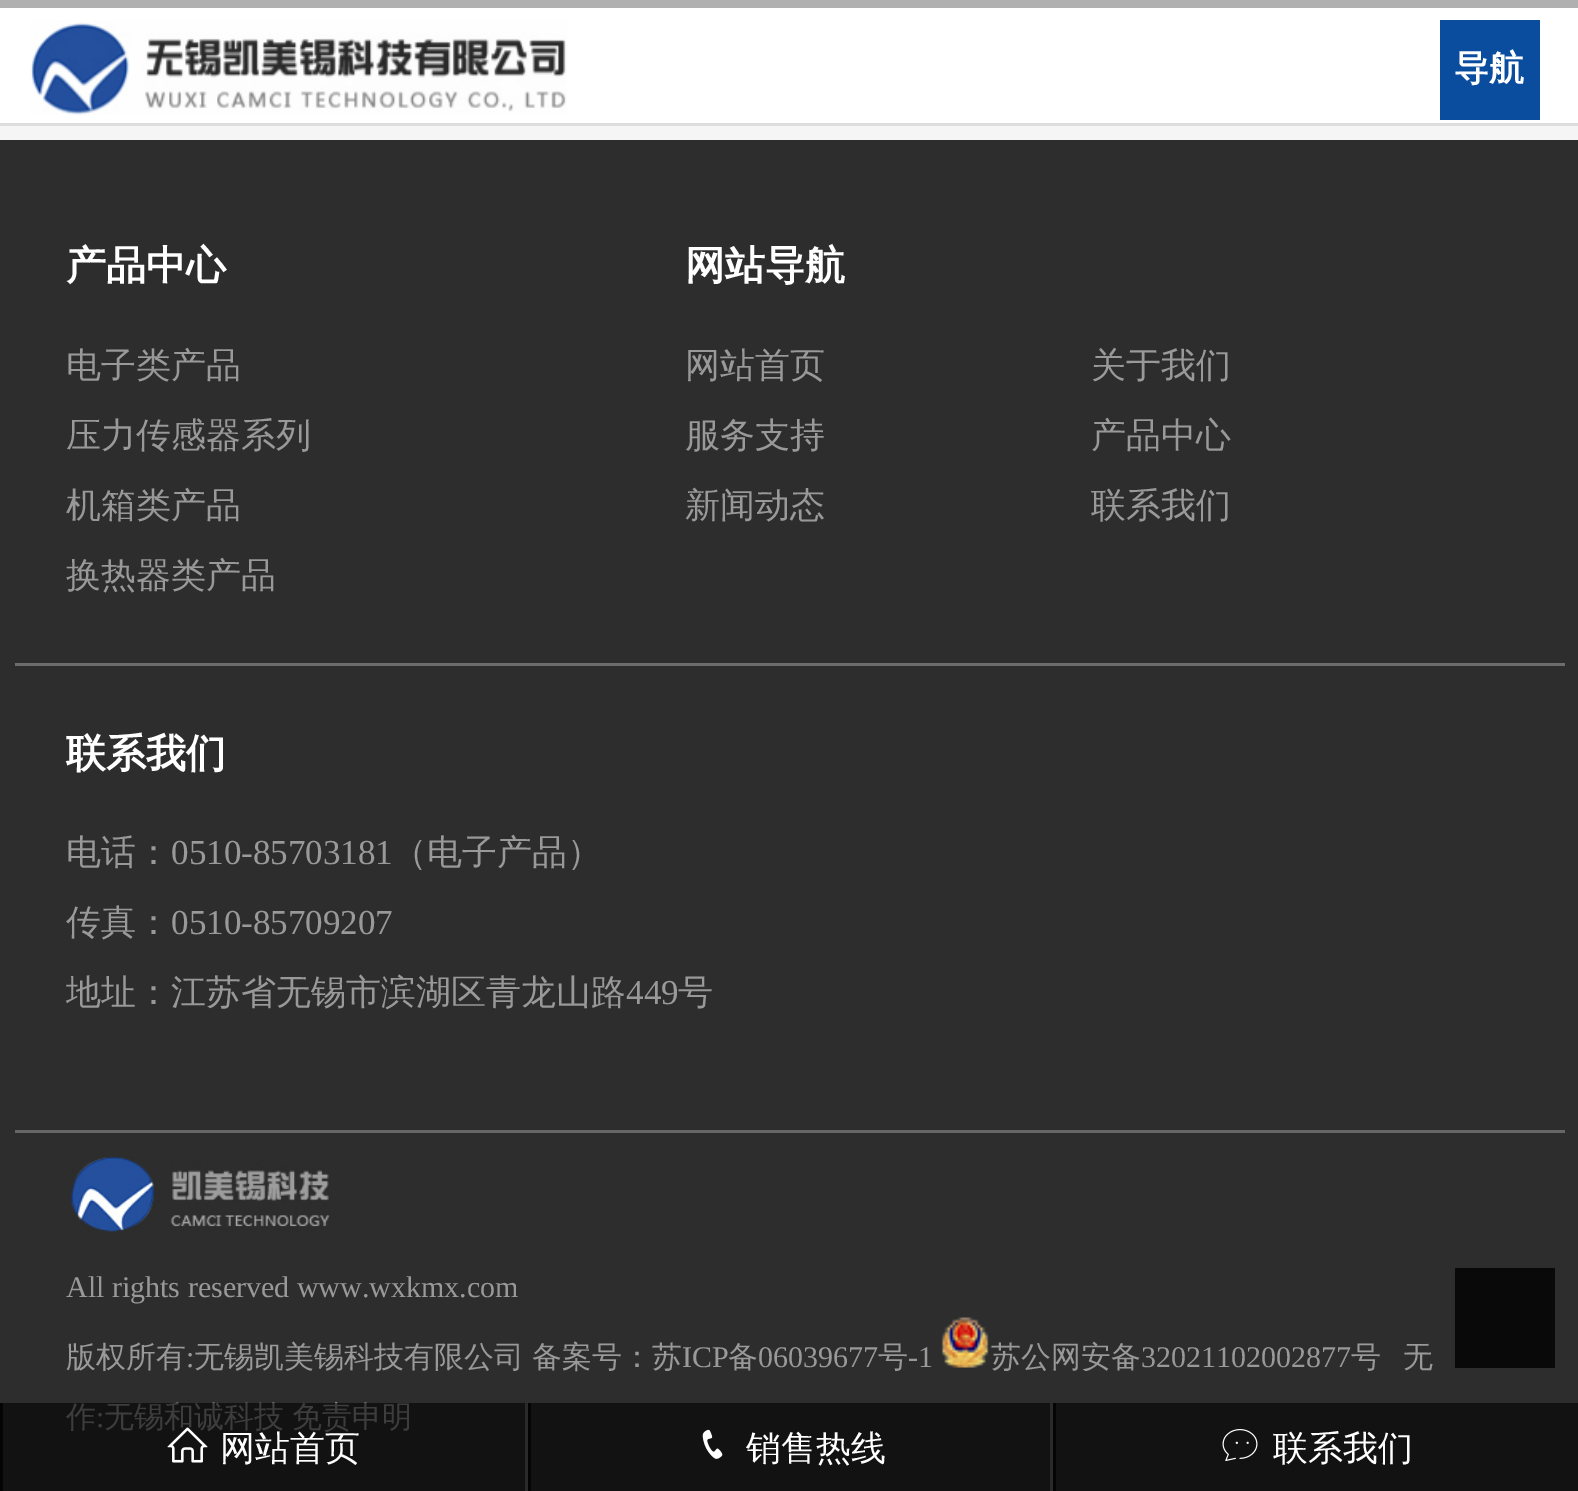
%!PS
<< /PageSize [1578 1491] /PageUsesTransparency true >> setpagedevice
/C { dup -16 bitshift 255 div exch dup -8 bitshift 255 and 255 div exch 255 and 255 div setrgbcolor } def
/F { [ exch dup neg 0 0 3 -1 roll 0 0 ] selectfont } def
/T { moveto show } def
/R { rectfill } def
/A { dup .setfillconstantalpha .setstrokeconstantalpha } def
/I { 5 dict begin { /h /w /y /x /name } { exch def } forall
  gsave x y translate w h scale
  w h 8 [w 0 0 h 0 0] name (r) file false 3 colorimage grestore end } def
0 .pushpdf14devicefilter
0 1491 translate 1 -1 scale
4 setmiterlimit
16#F5F5F5 C
0 0 1578 1491 R
16#FFFFFF C
0 8 1578 115 R
16#B0B0B0 C
0 0 1578 8 R
16#DDDDDD C
0 123 1578 3 R
(2.rgb) 30 113 537 2 I
(1.rgb) 30 20 537 95 I
16#0A4D9E C
1440 20 100 100 R
/WenQuanYiZenHei-Bold 35 F
16#FFFFFF C
(导航) 1454 80 T
16#2D2D2D C
0 140 1578 1351 R
/WenQuanYiZenHei-Bold 40 F
16#FFFFFF C
(产品中心) 66 279 T
/WenQuanYiZenHei-Medium 35 F
16#999999 C
(电子类产品) 66 377 T
(压力传感器系列) 66 447 T
(机箱类产品) 66 517 T
(换热器类产品) 66 587 T
/WenQuanYiZenHei-Bold 40 F
16#FFFFFF C
(网站导航) 685 279 T
/WenQuanYiZenHei-Medium 35 F
16#999999 C
(网站首页) 685 377 T
(关于我们) 1091 377 T
(服务支持) 685 447 T
(产品中心) 1091 447 T
(新闻动态) 685 517 T
(联系我们) 1091 517 T
16#6C6C6C C
15 663 1550 3 R
/WenQuanYiZenHei-Bold 40 F
16#FFFFFF C
(联系我们) 66 767 T
/WenQuanYiZenHei-Medium 35 F
16#999999 C
(电话：) 66 864 T
/LiberationSerif-Regular 35 F
(0510-85703181) 171 864 T
/WenQuanYiZenHei-Medium 35 F
(（电子产品）) 392 864 T
(传真：) 66 934 T
/LiberationSerif-Regular 35 F
(0510-85709207) 171 934 T
/WenQuanYiZenHei-Medium 35 F
(地址：江苏省无锡市滨湖区青龙山路) 66 1004 T
/LiberationSerif-Regular 35 F
(449) 626 1004 T
/WenQuanYiZenHei-Medium 35 F
(号) 678 1004 T
16#666666 C
15 1130 1550 3 R
(3.rgb) 71 1157 259 75 I
/LiberationSerif-Regular 30 F
16#999999 C
(All rights reserved www.wxkmx.com) 66 1297 T
/WenQuanYiZenHei-Medium 30 F
(版权所有) 66 1367 T
/LiberationSerif-Regular 30 F
(:) 186 1367 T
/WenQuanYiZenHei-Medium 30 F
(无锡凯美锡科技有限公司) 194 1367 T
(备案号：苏) 532 1367 T
/LiberationSerif-Regular 30 F
(ICP) 682 1367 T
/WenQuanYiZenHei-Medium 30 F
(备) 728 1367 T
/LiberationSerif-Regular 30 F
(06039677) 758 1367 T
/WenQuanYiZenHei-Medium 30 F
(号) 878 1367 T
/LiberationSerif-Regular 30 F
(-1) 908 1367 T
(4.rgb) 941 1317 48 51 I
/WenQuanYiZenHei-Medium 30 F
(苏公网安备) 991 1367 T
/LiberationSerif-Regular 30 F
(32021102002877) 1141 1367 T
/WenQuanYiZenHei-Medium 30 F
(号) 1351 1367 T
(无) 1403 1367 T
(作) 66 1427 T
/LiberationSerif-Regular 30 F
(:) 96 1427 T
/WenQuanYiZenHei-Medium 30 F
(无锡和诚科技) 104 1427 T
(免责申明) 292 1427 T
0.8 A
16#000000 C
1455 1268 100 100 R
0.6 A
3 1403 1575 88 R
1 A
16#040404 C
0 1403 3 88 R
(5.rgb) 167 1427 41 36 I
/WenQuanYiZenHei-Medium 35 F
16#FFFFFF C
(网站首页) 220 1460 T
16#2A2A2A C
525 1403 3 88 R
16#040404 C
528 1403 3 88 R
(6.rgb) 702 1429 21 30 I
16#FFFFFF C
(销售热线) 746 1460 T
16#2A2A2A C
1050 1403 3 88 R
16#040404 C
1053 1403 3 88 R
(7.rgb) 1222 1429 36 32 I
16#FFFFFF C
(联系我们) 1273 1460 T
.poppdf14devicefilter showpage
